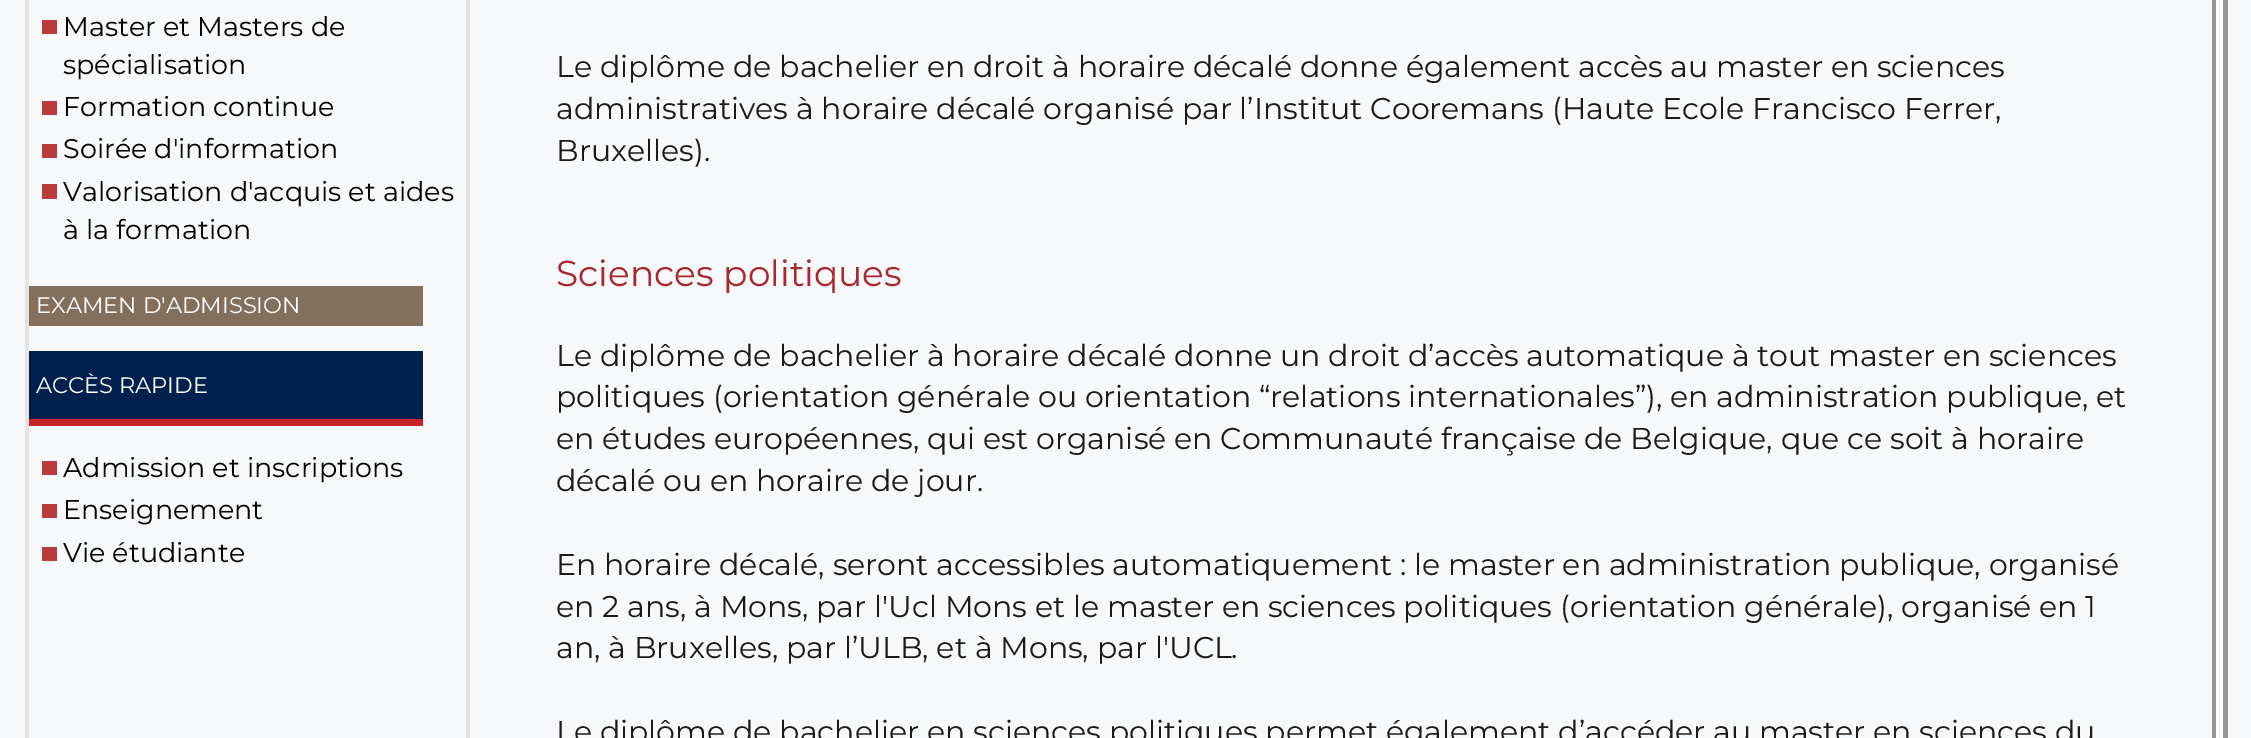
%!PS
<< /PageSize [2251 738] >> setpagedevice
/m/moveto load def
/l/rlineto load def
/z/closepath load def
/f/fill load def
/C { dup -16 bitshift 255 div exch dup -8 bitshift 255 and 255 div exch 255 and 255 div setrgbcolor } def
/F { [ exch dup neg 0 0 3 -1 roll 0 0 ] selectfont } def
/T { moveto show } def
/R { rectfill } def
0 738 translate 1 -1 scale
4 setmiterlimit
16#F6F8F9 C
0 0 2251 738 R
16#FFFFFF C
2216 0 7 738 R
16#979797 C
2228 -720 m 0 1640 l -5 -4 l 0 -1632 l z f
16#E3E3E3 C
25 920 m 0 -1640 l 4 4 l 0 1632 l z f
16#B93B3E C
42 20 15 14 R
/Montserrat-Thin 27 F
16#000000 C
(Master et Masters de) 63 36 T
(spécialisation) 63 74 T
16#B93B3E C
42 101 15 14 R
16#000000 C
(Formation continue) 63 116 T
16#B93B3E C
42 144 15 14 R
16#000000 C
(Soirée d'information) 63 158 T
16#B93B3E C
42 184 15 15 R
16#000000 C
(Valorisation d'acquis et aides) 63 201 T
(à la formation) 63 239 T
16#846F5D C
29 286 394 40 R
/Montserrat-Thin 22.5 F
16#FFFFFF C
(EXAMEN D'ADMISSION) 36 313 T
16#00214E C
29 351 394 68 R
16#FFFFFF C
(ACCÈS RAPIDE) 36 393 T
16#C6222B C
29 419 394 7 R
16#B93B3E C
42 461 15 14 R
/Montserrat-Thin 27 F
16#000000 C
(Admission et inscriptions) 63 477 T
16#B93B3E C
42 504 15 14 R
16#000000 C
(Enseignement) 63 519 T
16#B93B3E C
42 547 15 14 R
16#000000 C
(Vie étudiante) 63 562 T
16#979797 C
2216 -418 m 0 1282 l -4 -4 l 0 -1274 l z f
16#E3E3E3 C
466 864 m 0 -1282 l 4 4 l 0 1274 l z f
/Montserrat-Thin 30 F
16#1A1A18 C
(Le diplôme de bachelier en droit à horaire décalé donne également accès au master en sciences) 556 77 T
(administratives à horaire décalé organisé par l’Institut Cooremans \(Haute Ecole Francisco Ferrer,) 556 119 T
(Bruxelles\).) 556 161 T
/Montserrat-Thin 36 F
16#AA272F C
(Sciences politiques) 556 286 T
/Montserrat-Thin 30 F
16#1A1A18 C
(Le diplôme de bachelier à horaire décalé donne un droit d’accès automatique à tout master en sciences) 556 366 T
(politiques \(orientation générale ou orientation “relations internationales”\), en administration publique, et) 556 407 T
(en études européennes, qui est organisé en Communauté française de Belgique, que ce soit à horaire) 556 449 T
(décalé ou en horaire de jour.) 556 491 T
(En horaire décalé, seront accessibles automatiquement : le master en administration publique, organisé) 556 575 T
(en 2 ans, à Mons, par l'Ucl Mons et le master en sciences politiques \(orientation générale\), organisé en 1) 556 617 T
(an, à Bruxelles, par l’ULB, et à Mons, par l'UCL.) 556 658 T
(Le diplôme de bachelier en sciences politiques permet également d’accéder au master en sciences du) 556 742 T
showpage
